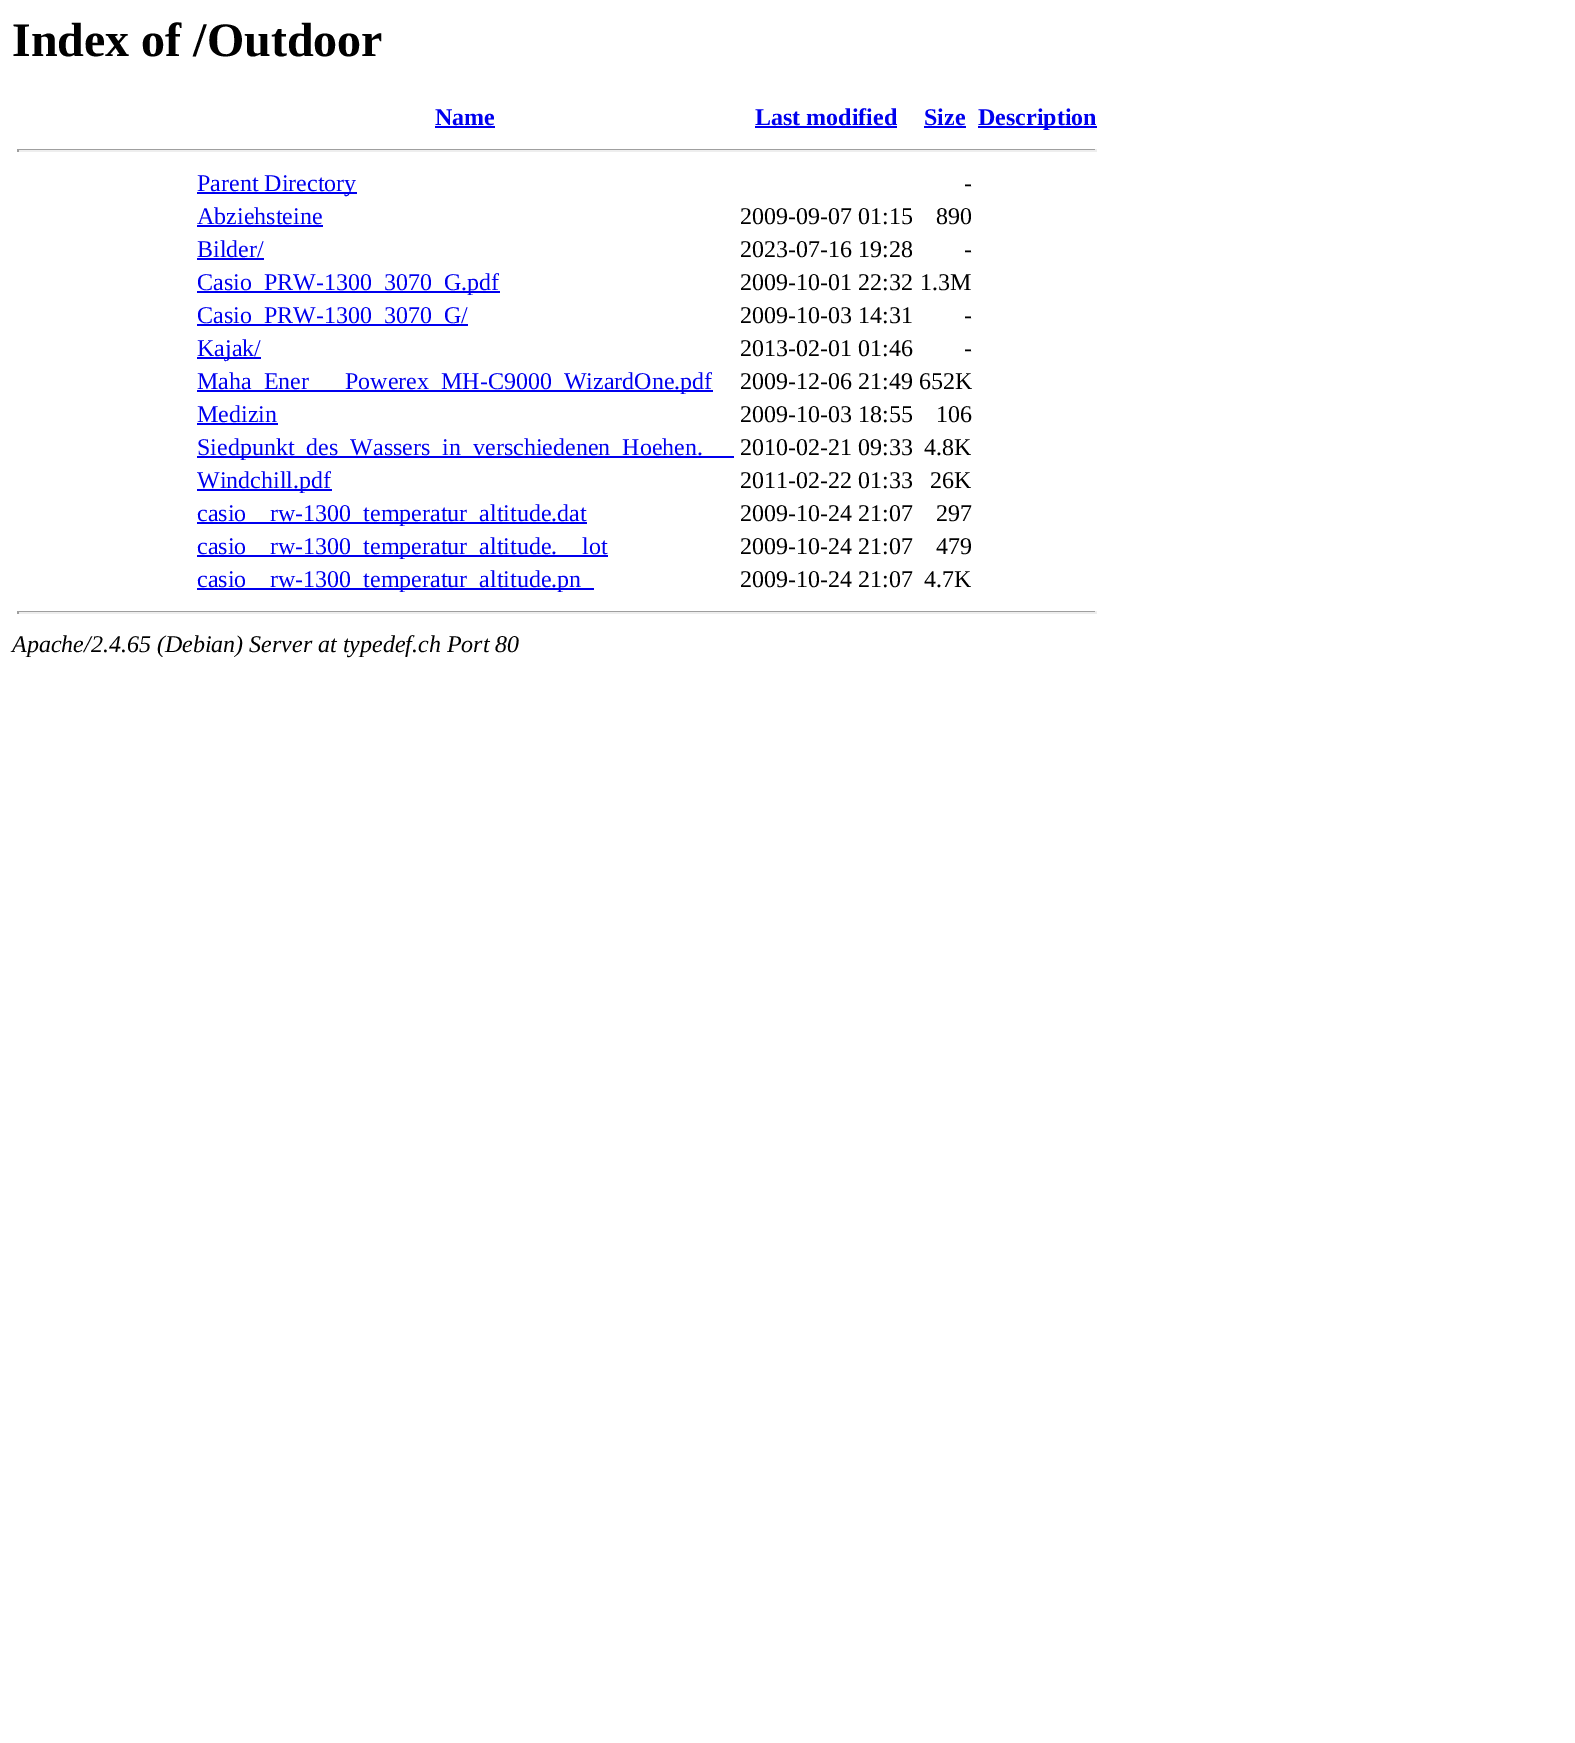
%!PS
<< /PageSize [1575 1743] >> setpagedevice
/C { dup -16 bitshift 255 div exch dup -8 bitshift 255 and 255 div exch 255 and 255 div setrgbcolor } def
/F { [ exch dup neg 0 0 3 -1 roll 0 0 ] selectfont } def
/T { moveto show } def
/R { rectfill } def
0 1743 translate 1 -1 scale
4 setmiterlimit
16#FFFFFF C
0 0 1575 1743 R
/LiberationSerif-Bold 48 F
16#000000 C
(Index of /Outdoor) 12 56 T
/LiberationSerif-Bold 24 F
16#0000EE C
(Name) 435 125 T
435 126 60 2 R
(Last modified) 755 125 T
755 126 142 2 R
(Size) 924 125 T
924 126 42 2 R
978 126 119 2 R
(Description) 978 125 T
16#9F9F9F C
17 149 1080 1 R
16#EEEEEE C
1095 149 2 3 R
17 150 1080 2 R
16#9F9F9F C
17 149 2 3 R
16#0000EE C
197 192 160 2 R
/LiberationSerif-Regular 24 F
(Parent Directory) 197 191 T
16#000000 C
(-) 964 191 T
16#0000EE C
(Abziehsteine) 197 224 T
197 225 126 2 R
16#000000 C
(2009-09-07 01:15) 740 224 T
(890) 936 224 T
16#0000EE C
(Bilder/) 197 257 T
197 258 67 2 R
16#000000 C
(2023-07-16 19:28) 740 257 T
(-) 964 257 T
16#0000EE C
197 291 303 2 R
(Casio_PRW-1300_3070_G.pdf) 197 290 T
16#000000 C
(2009-10-01 22:32) 740 290 T
(1.3M) 920 290 T
16#0000EE C
197 324 271 2 R
(Casio_PRW-1300_3070_G/) 197 323 T
16#000000 C
(2009-10-03 14:31) 740 323 T
(-) 964 323 T
16#0000EE C
197 357 64 2 R
(Kajak/) 197 356 T
16#000000 C
(2013-02-01 01:46) 740 356 T
(-) 964 356 T
16#0000EE C
197 390 516 2 R
(Maha_Ener) 197 389 T
(Powerex_MH-C9000_WizardOne.pdf) 345 389 T
16#000000 C
(2009-12-06 21:49 652K) 740 389 T
16#0000EE C
(Medizin) 197 422 T
197 423 81 2 R
16#000000 C
(2009-10-03 18:55) 740 422 T
(106) 936 422 T
16#0000EE C
197 456 537 2 R
(Siedpunkt_des_Wassers_in_verschiedenen_Hoehen.) 197 455 T
16#000000 C
(2010-02-21 09:33) 740 455 T
(4.8K) 924 455 T
16#0000EE C
197 489 135 2 R
(Windchill.pdf) 197 488 T
16#000000 C
(2011-02-22 01:33) 740 488 T
(26K) 930 488 T
16#0000EE C
(casio) 197 521 T
197 522 390 2 R
(rw-1300_temperatur_altitude.dat) 270 521 T
16#000000 C
(2009-10-24 21:07) 740 521 T
(297) 936 521 T
16#0000EE C
(casio) 197 554 T
197 555 411 2 R
(rw-1300_temperatur_altitude.) 270 554 T
(lot) 582 554 T
16#000000 C
(2009-10-24 21:07) 740 554 T
(479) 936 554 T
16#0000EE C
(casio) 197 587 T
197 588 397 2 R
(rw-1300_temperatur_altitude.pn) 270 587 T
16#000000 C
(2009-10-24 21:07) 740 587 T
(4.7K) 924 587 T
16#9F9F9F C
17 611 1080 1 R
16#EEEEEE C
1095 611 2 3 R
17 612 1080 2 R
16#9F9F9F C
17 611 2 3 R
/LiberationSerif-Italic 24 F
16#000000 C
(Apache/2.4.65 \(Debian\) Server at typedef.ch Port 80) 12 652 T
showpage
